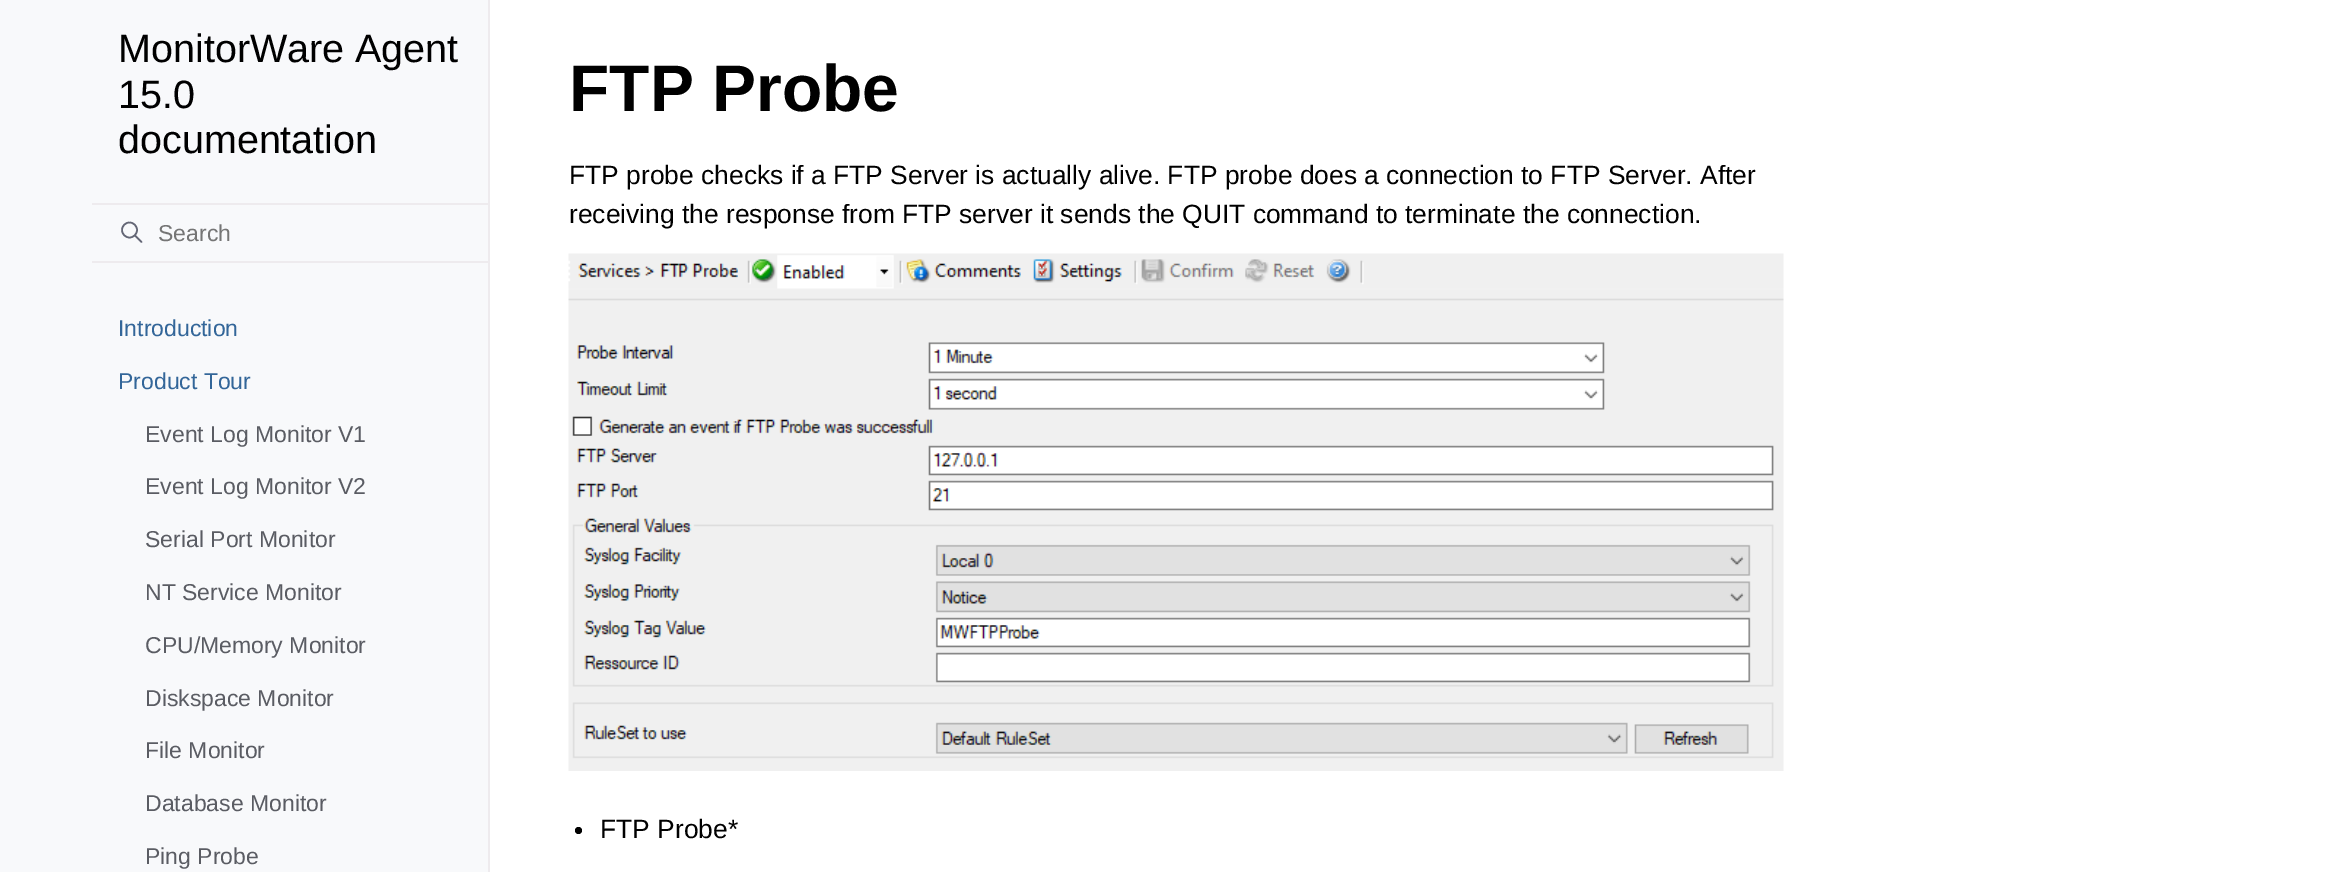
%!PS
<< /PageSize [2351 872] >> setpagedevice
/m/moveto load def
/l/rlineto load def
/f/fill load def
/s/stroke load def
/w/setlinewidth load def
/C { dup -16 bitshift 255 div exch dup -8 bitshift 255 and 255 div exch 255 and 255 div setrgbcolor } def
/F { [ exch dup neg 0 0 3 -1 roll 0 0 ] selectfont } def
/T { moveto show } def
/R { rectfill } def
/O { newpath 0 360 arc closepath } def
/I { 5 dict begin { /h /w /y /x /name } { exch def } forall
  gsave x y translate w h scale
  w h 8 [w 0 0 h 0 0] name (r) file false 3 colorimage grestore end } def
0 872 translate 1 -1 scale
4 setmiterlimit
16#FFFFFF C
0 0 2351 872 R
16#F8F9FB C
0 0 488 872 R
16#EEEBEE C
488 0 2 872 R
/LiberationSans-Regular 39.5 F
16#000000 C
(MonitorWare Agent) 118 62 T
(15.0) 118 108 T
(documentation) 118 153 T
16#646776 C
1.6 w
129.5 230 7.5 O s
1 setlinecap
1 setlinejoin
141.5 242 m -6.5 -6.5 l s
16#EEEBEE C
92 203 396 2 R
92 261 396 2 R
/LiberationSans-Regular 23 F
16#757575 C
(Search) 158 241 T
16#336699 C
(Introduction) 118 336 T
(Product Tour) 118 389 T
16#5A5C63 C
(Event Log Monitor V1) 145 442 T
(Event Log Monitor V2) 145 494 T
(Serial Port Monitor) 145 547 T
(NT Service Monitor) 145 600 T
(CPU/Memory Monitor) 145 653 T
(Diskspace Monitor) 145 706 T
(File Monitor) 145 758 T
(Database Monitor) 145 811 T
(Ping Probe) 145 864 T
/LiberationSans-Bold 66 F
16#000000 C
(FTP Probe) 569 111 T
/LiberationSans-Regular 26.4 F
(FTP probe checks if a FTP Server is actually alive. FTP probe does a connection to FTP Server. After) 569 184 T
(receiving the response from FTP server it sends the QUIT command to terminate the connection.) 569 223 T
(1.rgb) 568 253 1216 518 I
578.5 830.5 3.5 O f
(FTP Probe*) 600 838 T
showpage
